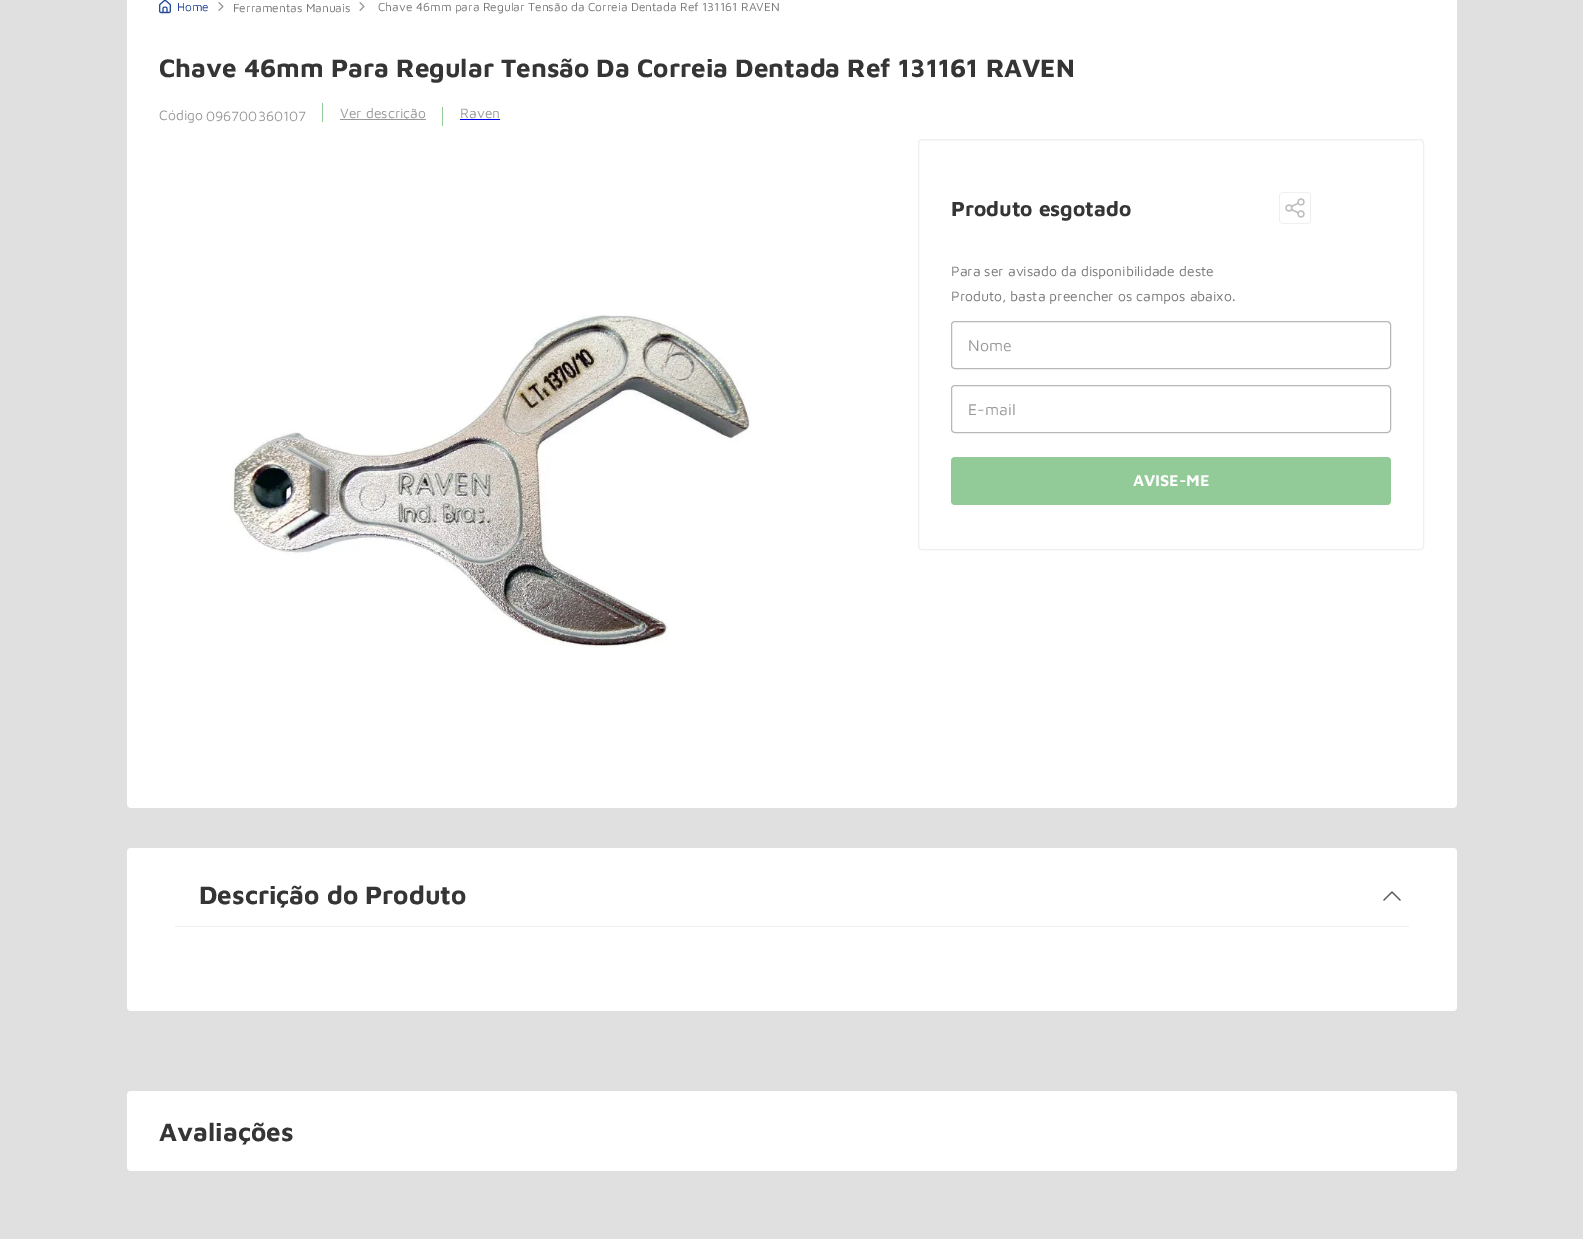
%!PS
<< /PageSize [1583 1239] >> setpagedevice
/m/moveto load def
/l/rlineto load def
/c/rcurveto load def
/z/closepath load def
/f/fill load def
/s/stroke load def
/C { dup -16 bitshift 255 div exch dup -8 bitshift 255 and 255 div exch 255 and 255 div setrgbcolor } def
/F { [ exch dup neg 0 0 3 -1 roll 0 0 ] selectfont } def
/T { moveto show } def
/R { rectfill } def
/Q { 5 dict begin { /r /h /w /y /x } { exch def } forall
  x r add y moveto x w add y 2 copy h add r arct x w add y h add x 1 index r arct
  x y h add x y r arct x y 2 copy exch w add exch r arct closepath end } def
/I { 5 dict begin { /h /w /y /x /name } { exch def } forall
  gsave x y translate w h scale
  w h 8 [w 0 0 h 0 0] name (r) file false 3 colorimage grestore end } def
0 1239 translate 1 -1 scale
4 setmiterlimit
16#E0E0E0 C
0 0 1583 1239 R
16#FFFFFF C
127 0 1330 139 R
(1.rgb) 159 0 12 14 I
/MavenPro-Regular 12 F
16#254896 C
(Home) 177 11 T
(2.rgb) 218 2 6 9 I
16#777777 C
(Ferramentas Manuais) 233 12 T
(2.rgb) 359 2 6 9 I
(Chave 46mm para Regular Tensão da Correia Dentada Ref 131161 RAVEN) 378 11 T
/MavenPro-Bold 26 F
16#353535 C
(Chave 46mm Para Regular Tensão Da Correia Dentada Ref 131161 RAVEN) 159 77 T
/MavenPro-Regular 14 F
16#999999 C
(Código) 159 120 T
(096700360107) 206 121 T
16#92CA98 C
322 103 1 19 R
16#999999 C
340 119 86 1 R
(Ver descrição) 340 118 T
16#92CA98 C
442 107 1 19 R
16#999999 C
(Raven) 460 118 T
16#0000EE C
460 119 40 1 R
16#FFFFFF C
127 139 m 1330 0 l 0 665 l 0 2 -2 4 -4 4 c -1322 0 l -2 0 -4 -2 -4 -4 c z f
(3.rgb) 229 315 522 333 I
16#EFEFEF C
918.5 139.5 505 410 3.5 Q s
/MavenPro-Bold 21 F
16#353535 C
(Produto esgotado) 951 216 T
(4.rgb) 1279 192 32 32 I
/MavenPro-Regular 14 F
16#777777 C
(Para ser avisado da disponibilidade deste) 951 276 T
(Produto, basta preencher os campos abaixo.) 951 301 T
16#B8B8B8 C
951.5 321.5 439 47 3.5 Q s
/MavenPro-Regular 16 F
16#999999 C
(Nome) 968 351 T
16#B8B8B8 C
951.5 385.5 439 47 3.5 Q s
16#999999 C
(E-mail) 968 415 T
16#92CA98 C
951 457 440 48 4 Q f
/MavenPro-Bold 16 F
16#FFFFFF C
(AVISE-ME) 1133 486 T
127 848 1330 163 4 Q f
16#EFEFEF C
175 926 1234 1 R
/MavenPro-Bold 26 F
16#353535 C
(Descrição do Produto) 199 904 T
(5.rgb) 1383 891 18 10 I
16#FFFFFF C
127 1091 1330 80 4 Q f
16#353535 C
(Avaliações) 159 1141 T
showpage
